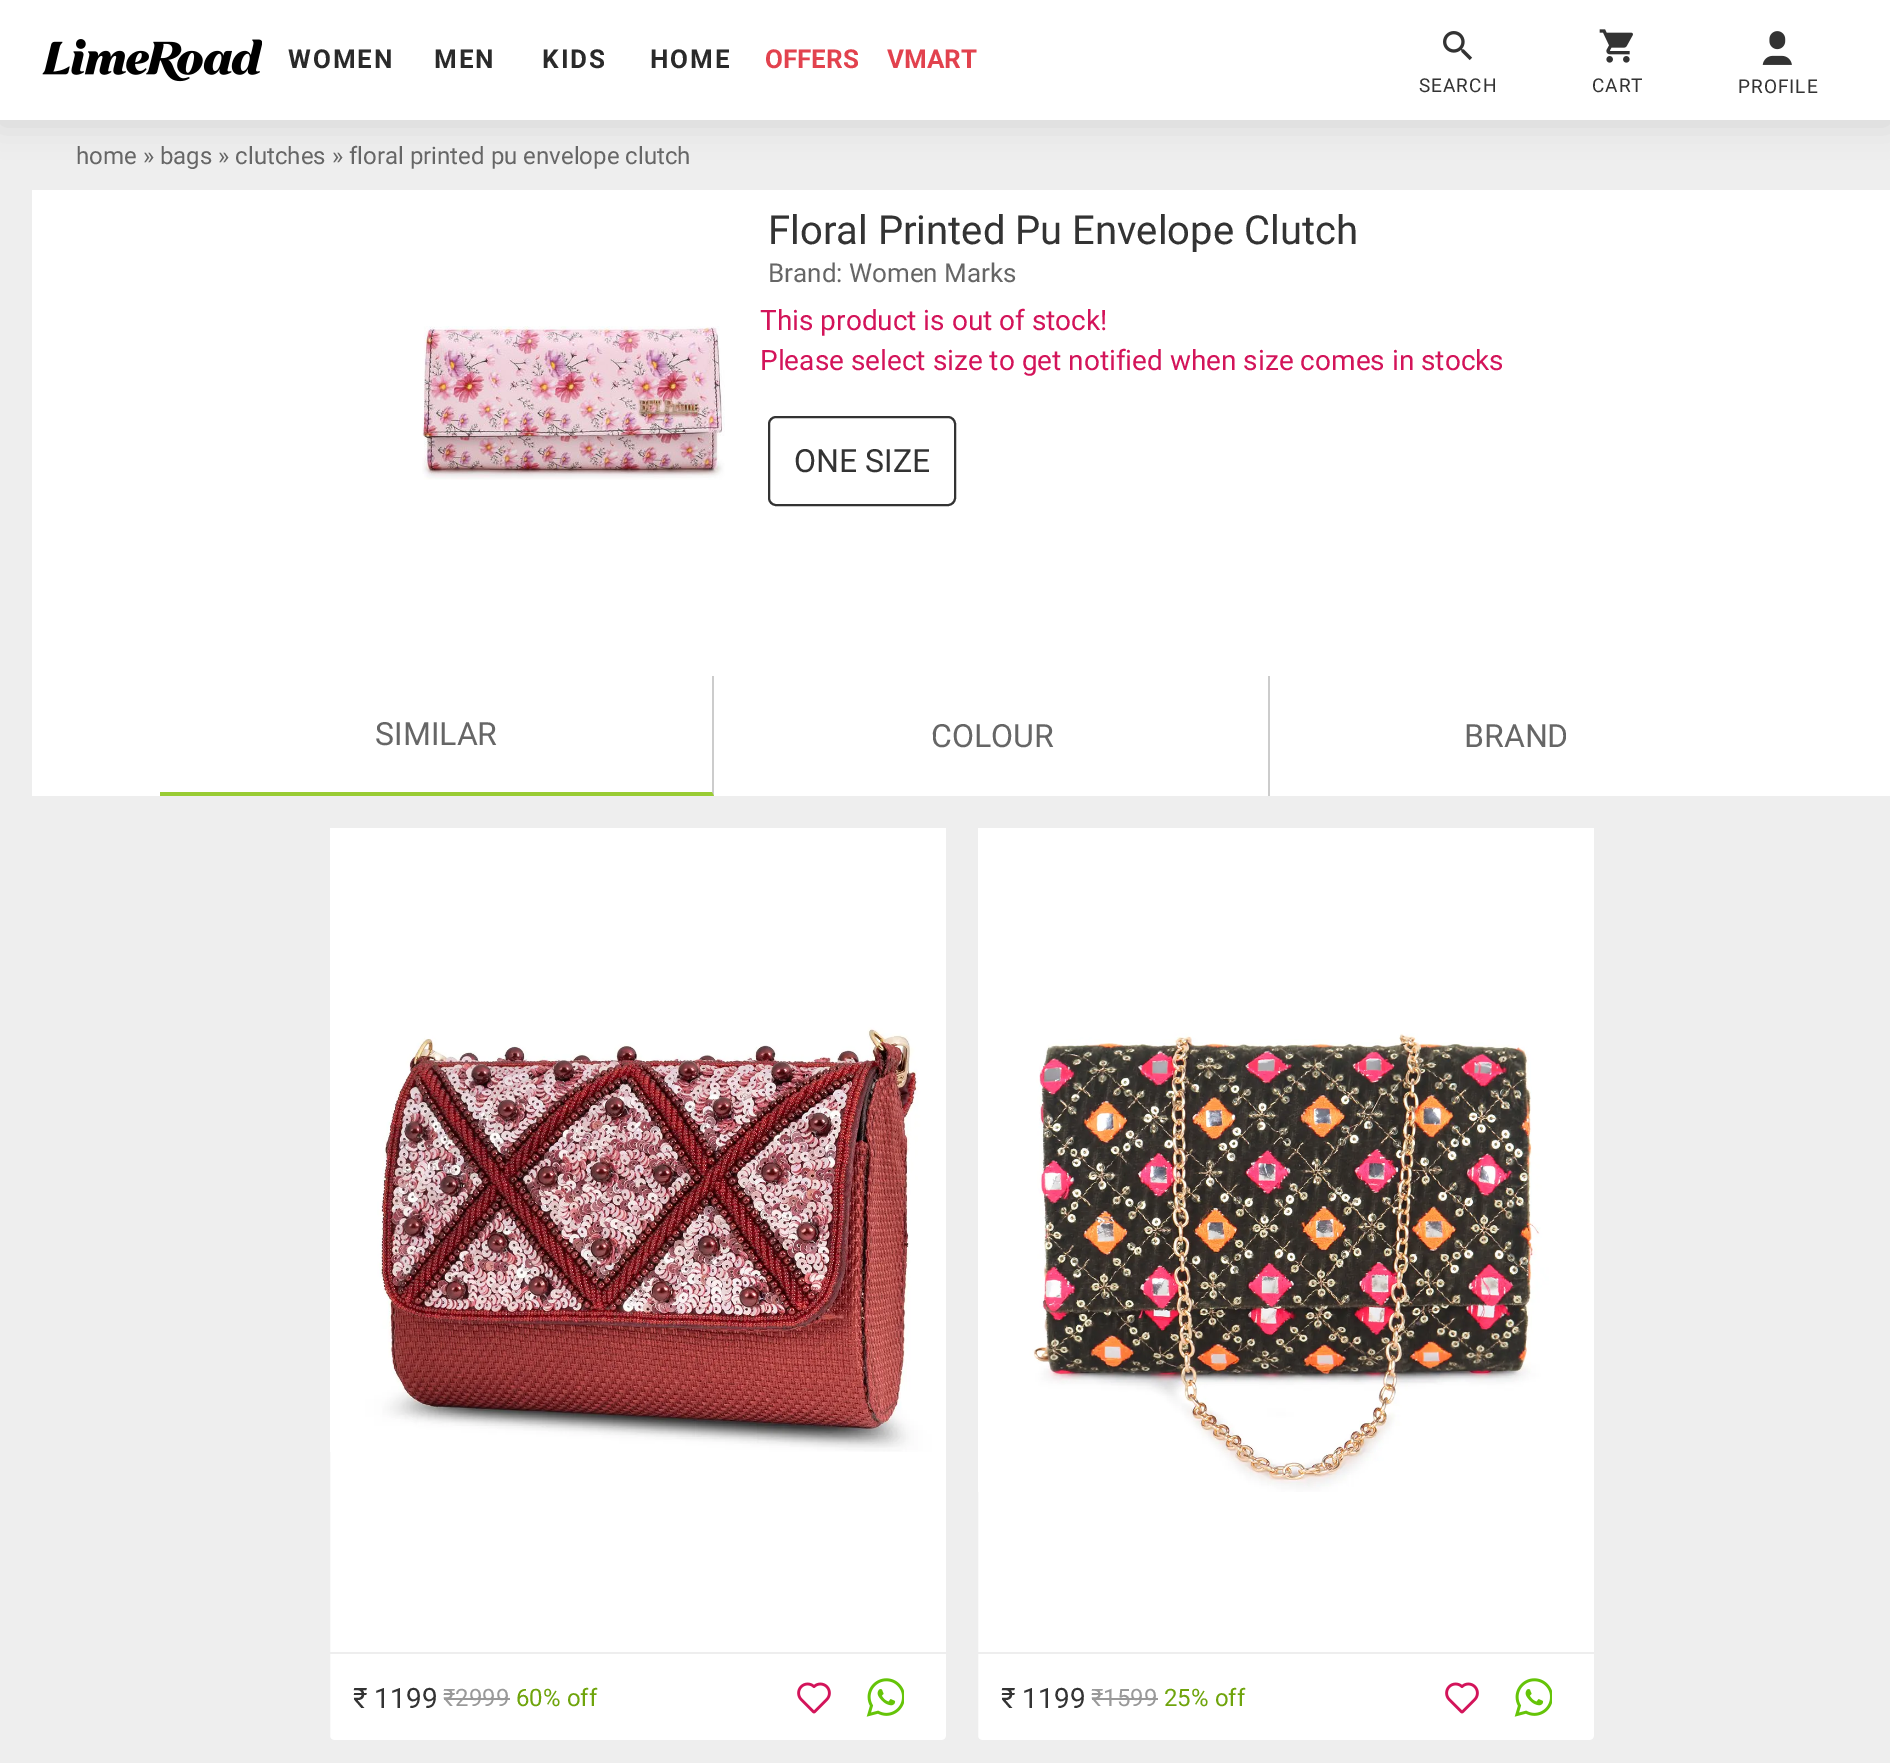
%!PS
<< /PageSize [1890 1763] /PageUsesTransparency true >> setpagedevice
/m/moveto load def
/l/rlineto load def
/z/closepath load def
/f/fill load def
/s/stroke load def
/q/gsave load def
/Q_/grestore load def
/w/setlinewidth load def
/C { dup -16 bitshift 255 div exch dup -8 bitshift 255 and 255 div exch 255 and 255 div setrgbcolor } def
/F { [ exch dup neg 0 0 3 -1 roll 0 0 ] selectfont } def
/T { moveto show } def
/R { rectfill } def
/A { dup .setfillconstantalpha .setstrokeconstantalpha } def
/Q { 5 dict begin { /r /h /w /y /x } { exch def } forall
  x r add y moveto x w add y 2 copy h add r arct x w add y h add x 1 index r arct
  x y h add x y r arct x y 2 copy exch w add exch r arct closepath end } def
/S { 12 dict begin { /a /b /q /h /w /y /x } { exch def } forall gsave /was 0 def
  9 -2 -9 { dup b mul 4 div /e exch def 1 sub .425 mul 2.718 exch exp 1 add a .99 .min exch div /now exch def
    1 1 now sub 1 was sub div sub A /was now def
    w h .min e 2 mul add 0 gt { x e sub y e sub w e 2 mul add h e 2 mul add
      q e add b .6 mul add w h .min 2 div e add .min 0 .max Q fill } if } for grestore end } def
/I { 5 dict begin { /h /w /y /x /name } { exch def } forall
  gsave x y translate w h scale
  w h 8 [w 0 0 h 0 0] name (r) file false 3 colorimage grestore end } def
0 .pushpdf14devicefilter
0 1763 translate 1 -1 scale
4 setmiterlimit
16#EEEEEE C
0 0 1890 1763 R
16#555555 C
0 4 1890 120 0 16 .16 S
16#FFFFFF C
0 0 1890 120 R
(1.rgb) 42 39 220 43 I
/Roboto-Bold 26 F
16#2A2A2A C
288 68 m 2 0 (WOMEN) ashow
434 68 m 2 0 (MEN) ashow
542 68 m 2 0 (KIDS) ashow
650 68 m 2 0 (HOME) ashow
16#E2424E C
(OFFERS) 765 68 T
(VMART) 887 68 T
(2.rgb) 1443 31 30 30 I
/Roboto-Regular 19 F
16#333333 C
1419 92 m 1 0 (SEARCH) ashow
(3.rgb) 1599 29 34 34 I
1592 92 m 1 0 (CART) ashow
(4.rgb) 1762 31 30 34 I
1738 93 m 1 0 (PROFILE) ashow
/Roboto-Regular 24 F
16#666666 C
(home » bags » clutches » floral printed pu envelope clutch) 76 164 T
16#FFFFFF C
32 190 1858 606 R
(5.rgb) 422 326 303 154 I
/Roboto-Regular 40 F
16#333333 C
(Floral Printed Pu Envelope Clutch) 768 244 T
/Roboto-Regular 26 F
16#666666 C
(Brand: Women Marks) 768 282 T
/Roboto-Regular 28 F
16#D3145A C
(This product is out of stock!) 760 330 T
(Please select size to get notified when size comes in stocks) 760 370 T
16#333333 C
2 w
769 417 186 88 7 Q s
/Roboto-Regular 32 F
(ONE SIZE) 794 472 T
16#CCCCCC C
714 676 m 0 120 l -2 -4 l 0 -116 l z f
16#99CC33 C
714 796 m -554 0 l 0 -4 l 552 0 l z f
16#666666 C
(SIMILAR) 375 745 T
16#CCCCCC C
1268 676 2 120 R
16#666666 C
(COLOUR) 931 747 T
(BRAND) 1464 747 T
16#FFFFFF C
328 826 620 916 6 Q q f Q_
16#EEEEEE C
4 w
s
(6.rgb) 330 828 616 624 I
330 1652 616 2 R
/Roboto-Regular 28 F
16#333333 C
(₹ 1199) 353 1708 T
/Roboto-Regular 24 F
16#999999 C
(₹2999) 443 1706 T
444 1698 66 2 R
16#6FA40C C
(60% off) 516 1706 T
(7.rgb) 797 1682 34 32 I
(8.rgb) 866 1678 38 39 I
16#FFFFFF C
976 826 620 916 6 Q q f Q_
16#EEEEEE C
s
(9.rgb) 978 828 616 664 I
978 1652 616 2 R
/Roboto-Regular 28 F
16#333333 C
(₹ 1199) 1001 1708 T
/Roboto-Regular 24 F
16#999999 C
(₹1599) 1091 1706 T
1092 1698 66 2 R
16#6FA40C C
(25% off) 1164 1706 T
(7.rgb) 1445 1682 34 32 I
(8.rgb) 1514 1678 38 39 I
.poppdf14devicefilter showpage
